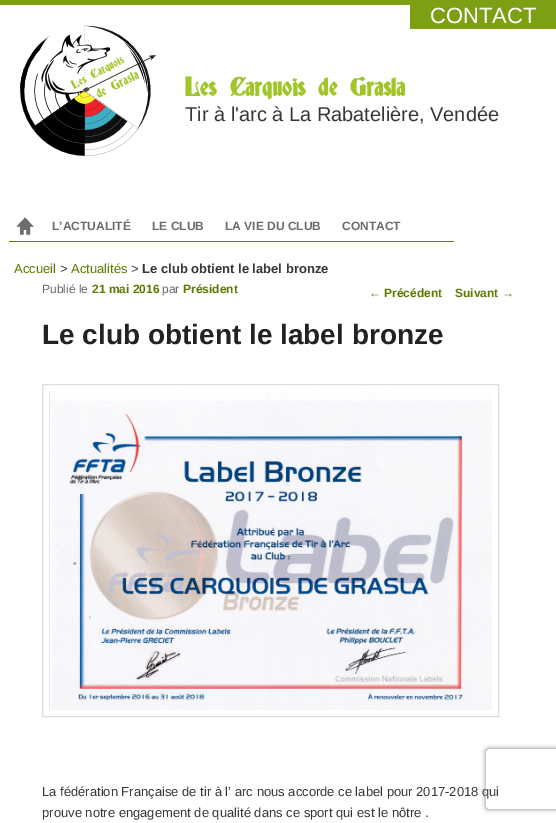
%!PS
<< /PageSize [556 823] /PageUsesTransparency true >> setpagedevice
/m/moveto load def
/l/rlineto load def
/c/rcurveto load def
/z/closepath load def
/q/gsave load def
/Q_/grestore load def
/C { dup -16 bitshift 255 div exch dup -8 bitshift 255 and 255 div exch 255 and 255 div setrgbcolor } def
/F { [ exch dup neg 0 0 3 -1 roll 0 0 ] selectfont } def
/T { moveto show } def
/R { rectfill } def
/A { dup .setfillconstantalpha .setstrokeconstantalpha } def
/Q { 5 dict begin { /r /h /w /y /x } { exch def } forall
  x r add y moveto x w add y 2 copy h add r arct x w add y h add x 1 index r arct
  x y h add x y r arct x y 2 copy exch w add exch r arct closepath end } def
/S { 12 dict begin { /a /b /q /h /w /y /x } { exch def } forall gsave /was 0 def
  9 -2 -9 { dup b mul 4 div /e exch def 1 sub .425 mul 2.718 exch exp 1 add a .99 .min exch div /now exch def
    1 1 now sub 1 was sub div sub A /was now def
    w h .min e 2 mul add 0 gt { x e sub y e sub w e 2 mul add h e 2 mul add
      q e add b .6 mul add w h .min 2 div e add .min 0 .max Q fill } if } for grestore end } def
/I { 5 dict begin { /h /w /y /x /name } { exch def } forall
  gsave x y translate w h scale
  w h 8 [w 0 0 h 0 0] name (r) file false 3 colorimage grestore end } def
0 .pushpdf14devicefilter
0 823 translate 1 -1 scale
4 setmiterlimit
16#FFFFFF C
0 0 556 823 R
16#7D9F14 C
0 0 556 5 R
410 5 146 24 R
/LiberationSans-Regular 22 F
16#FFFFFF C
(CONTACT) 430 23 T
(1.rgb) 20 25 136 131 I
/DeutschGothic-Bold 24 F
16#A0C629 C
(Les Carquois de Grasla) 185 96 T
/LiberationSans-Regular 20 F
16#373737 C
(Tir à l'arc à La Rabatelière, Vendée) 185 121 T
16#5C7A00 C
9 241 445 1 R
(2.rgb) 16 217 18 18 I
/LiberationSans-Bold 12 F
16#6C6C6C C
(L’ACTUALITÉ) 52 230 T
(LE CLUB) 152 230 T
(LA VIE DU CLUB) 225 230 T
(CONTACT) 342 230 T
/LiberationSans-Regular 13 F
16#5C7A00 C
(Accueil) 14 273 T
16#373737 C
(>) 60 273 T
16#5C7A00 C
(Actualités) 71 273 T
16#373737 C
(>) 131 273 T
/LiberationSans-Bold 13 F
(Le club obtient le label bronze) 142 273 T
/LiberationSans-Regular 12 F
16#666666 C
(Publié le) 42 293 T
/LiberationSans-Bold 12 F
16#5C7A00 C
(21 mai 2016) 92 293 T
/LiberationSans-Regular 12 F
16#666666 C
(par) 162 293 T
/LiberationSans-Bold 12 F
16#5C7A00 C
(Président) 183 293 T
/LiberationSans-Bold 28 F
16#222222 C
(Le club obtient le label bronze) 42 344 T
16#DDDDDD C
42.5 384.5 456 332 rectstroke
(3.rgb) 49 391 443 319 I
/LiberationSans-Regular 13 F
16#373737 C
(La fédération Française de tir à l’ arc nous accorde ce label pour 2017-2018 qui) 42 796 T
(prouve notre engagement de qualité dans ce sport qui est le nôtre .) 42 817 T
/LiberationSans-Regular 12 F
16#5C7A00 C
(←) 369 297 T
/LiberationSans-Bold 12 F
(Précédent) 384 297 T
(Suivant) 455 297 T
/LiberationSans-Regular 12 F
(→) 502 297 T
q
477 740 m 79 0 l 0 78 l -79 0 l z 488 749 m 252 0 l 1 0 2 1 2 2 c 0 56 l 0 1 -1 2 -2 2 c -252 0 l -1 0 -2 -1 -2 -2 c 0 -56 l 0 -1 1 -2 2 -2 c z eoclip newpath
16#808080 C
486 749 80 60 2 2.5 1 S
Q_
.poppdf14devicefilter showpage
